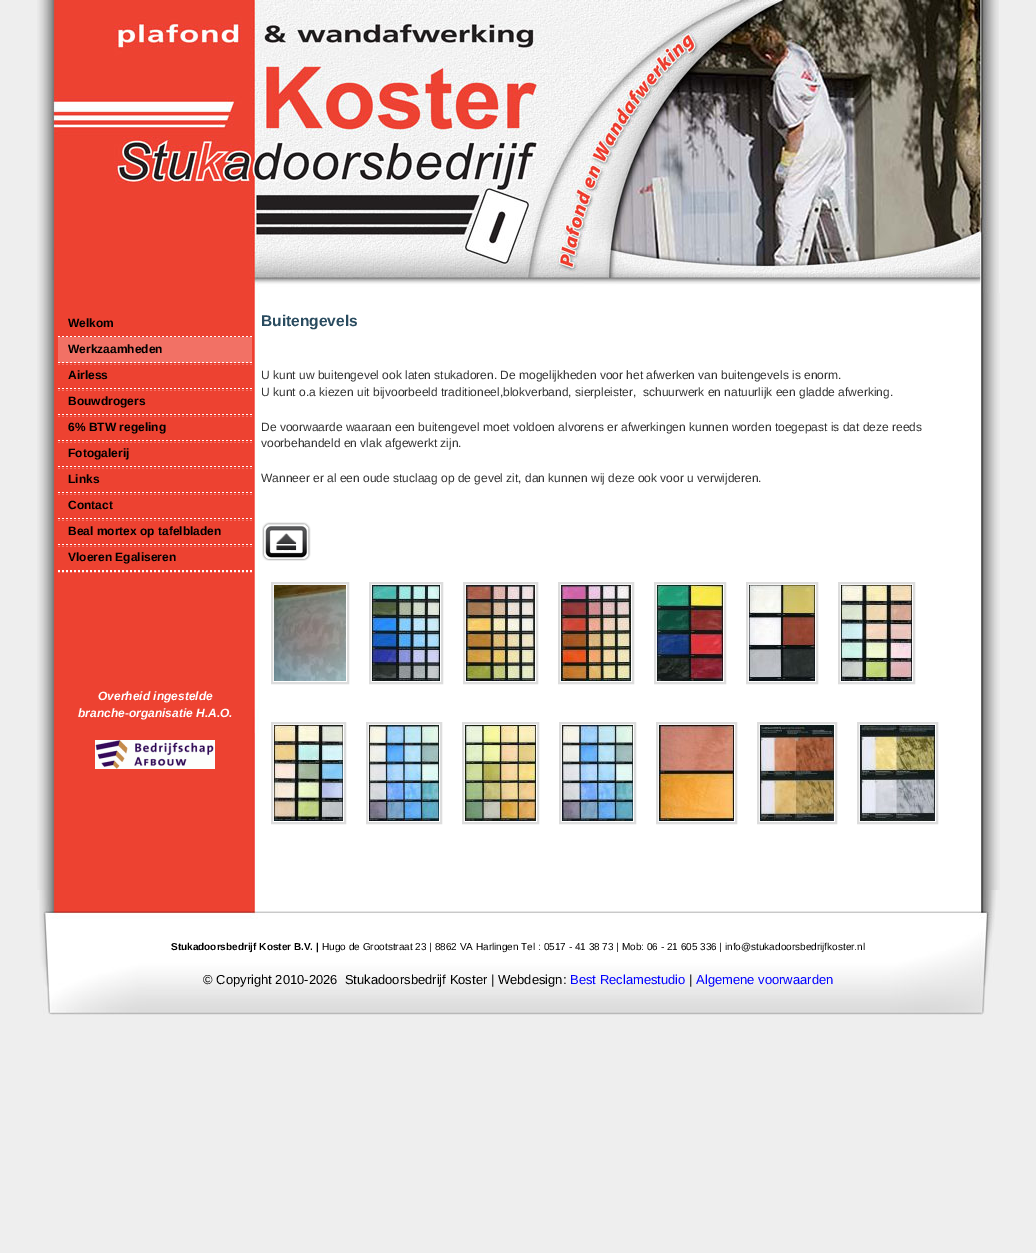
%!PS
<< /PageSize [1036 1253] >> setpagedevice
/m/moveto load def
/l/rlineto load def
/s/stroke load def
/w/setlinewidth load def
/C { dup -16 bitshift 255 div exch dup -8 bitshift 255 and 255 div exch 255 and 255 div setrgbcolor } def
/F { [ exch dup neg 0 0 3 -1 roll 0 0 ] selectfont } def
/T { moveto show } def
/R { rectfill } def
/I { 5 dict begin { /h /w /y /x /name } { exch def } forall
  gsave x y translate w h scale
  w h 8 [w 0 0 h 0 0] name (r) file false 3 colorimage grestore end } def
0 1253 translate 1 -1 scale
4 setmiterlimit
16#EEEEEE C
0 0 1036 1253 R
(1.rgb) 37 0 547 293 I
(2.rgb) 584 0 396 278 I
(3.rgb) 980 0 19 293 I
(4.rgb) 584 278 396 15 I
(5.rgb) 37 293 21 597 I
16#ED4231 C
58 293 194 597 R
16#FFFFFF C
2 w
[2 2] 0 setdash
58 337 m 194 0 l s
/LiberationSans-Bold 12 F
16#000000 C
(Welkom) 68 327 T
16#F27165 C
58 337 194 26 R
16#FFFFFF C
58 363 m 194 0 l s
16#000000 C
(Werkzaamheden) 68 353 T
16#ED4231 C
58 363 194 1 R
16#FFFFFF C
58 389 m 194 0 l s
16#000000 C
(Airless) 68 379 T
16#ED4231 C
58 389 194 1 R
16#FFFFFF C
58 415 m 194 0 l s
16#000000 C
(Bouwdrogers) 68 405 T
16#ED4231 C
58 415 194 1 R
16#FFFFFF C
58 441 m 194 0 l s
16#000000 C
(6% BTW regeling) 68 431 T
16#ED4231 C
58 441 194 1 R
16#FFFFFF C
58 467 m 194 0 l s
16#000000 C
(Fotogalerij) 68 457 T
16#ED4231 C
58 467 194 1 R
16#FFFFFF C
58 493 m 194 0 l s
16#000000 C
(Links) 68 483 T
16#ED4231 C
58 493 194 1 R
16#FFFFFF C
58 519 m 194 0 l s
16#000000 C
(Contact) 68 509 T
16#ED4231 C
58 519 194 1 R
16#FFFFFF C
58 545 m 194 0 l s
16#000000 C
(Beal mortex op tafelbladen) 68 535 T
16#ED4231 C
58 545 194 1 R
16#FFFFFF C
58 571 m 194 0 l s
16#000000 C
(Vloeren Egaliseren) 68 561 T
/LiberationSans-BoldItalic 12 F
16#FFFFFF C
(Overheid ingestelde) 98 700 T
(branche-organisatie H.A.O.) 78 717 T
(6.rgb) 95 740 120 29 I
(7.rgb) 252 293 9 597 I
261 293 709 597 R
/LiberationSans-Bold 15.5 F
16#294B5F C
(Buitengevels) 261 326 T
/LiberationSans-Regular 12 F
16#333333 C
(U kunt uw buitengevel ook laten stukadoren. De mogelijkheden voor het afwerken van buitengevels is enorm.) 261 379 T
(U kunt o.a kiezen uit bijvoorbeeld traditioneel,blokverband, sierpleister,  schuurwerk en natuurlijk een gladde afwerking.) 261 396 T
(De voorwaarde waaraan een buitengevel moet voldoen alvorens er afwerkingen kunnen worden toegepast is dat deze reeds) 261 431 T
(voorbehandeld en vlak afgewerkt zijn.) 261 447 T
(Wanneer er al een oude stuclaag op de gevel zit, dan kunnen wij deze ook voor u verwijderen.) 261 482 T
(8.rgb) 262 522 49 39 I
16#DDDDDD C
[] 0 setdash
272 583 76 100 rectstroke
(9.rgb) 274 585 72 96 I
370 583 72 100 rectstroke
(10.rgb) 372 585 68 96 I
464 583 73 100 rectstroke
(11.rgb) 466 585 69 96 I
559 583 74 100 rectstroke
(12.rgb) 561 585 70 96 I
655 583 70 100 rectstroke
(13.rgb) 657 585 66 96 I
747 583 70 100 rectstroke
(14.rgb) 749 585 66 96 I
839 583 75 100 rectstroke
(15.rgb) 841 585 71 96 I
272 723 73 100 rectstroke
(16.rgb) 274 725 69 96 I
367 723 74 100 rectstroke
(17.rgb) 369 725 70 96 I
463 723 75 100 rectstroke
(18.rgb) 465 725 71 96 I
560 723 75 100 rectstroke
(19.rgb) 562 725 71 96 I
657 723 79 100 rectstroke
(20.rgb) 659 725 75 96 I
758 723 78 100 rectstroke
(21.rgb) 760 725 74 96 I
858 723 79 100 rectstroke
(22.rgb) 860 725 75 96 I
(23.rgb) 970 293 30 597 I
(24.rgb) 39 890 942 21 I
(25.rgb) 981 890 15 21 I
(26.rgb) 39 911 956 104 I
/LiberationSans-Bold 10 F
16#000000 C
(Stukadoorsbedrijf Koster B.V. |) 171 950 T
/LiberationSans-Regular 10 F
(Hugo de Grootstraat 23 | 8862 VA Harlingen Tel : 0517 - 41 38 73 | Mob: 06 - 21 605 336 | info@stukadoorsbedrijfkoster.nl) 322 950 T
/LiberationSans-Regular 13 F
(© Copyright 2010-2026  Stukadoorsbedrijf Koster | Webdesign:) 203 984 T
16#0000FF C
(Best Reclamestudio) 570 984 T
16#000000 C
(|) 689 984 T
16#0000FF C
(Algemene voorwaarden) 696 984 T
showpage
